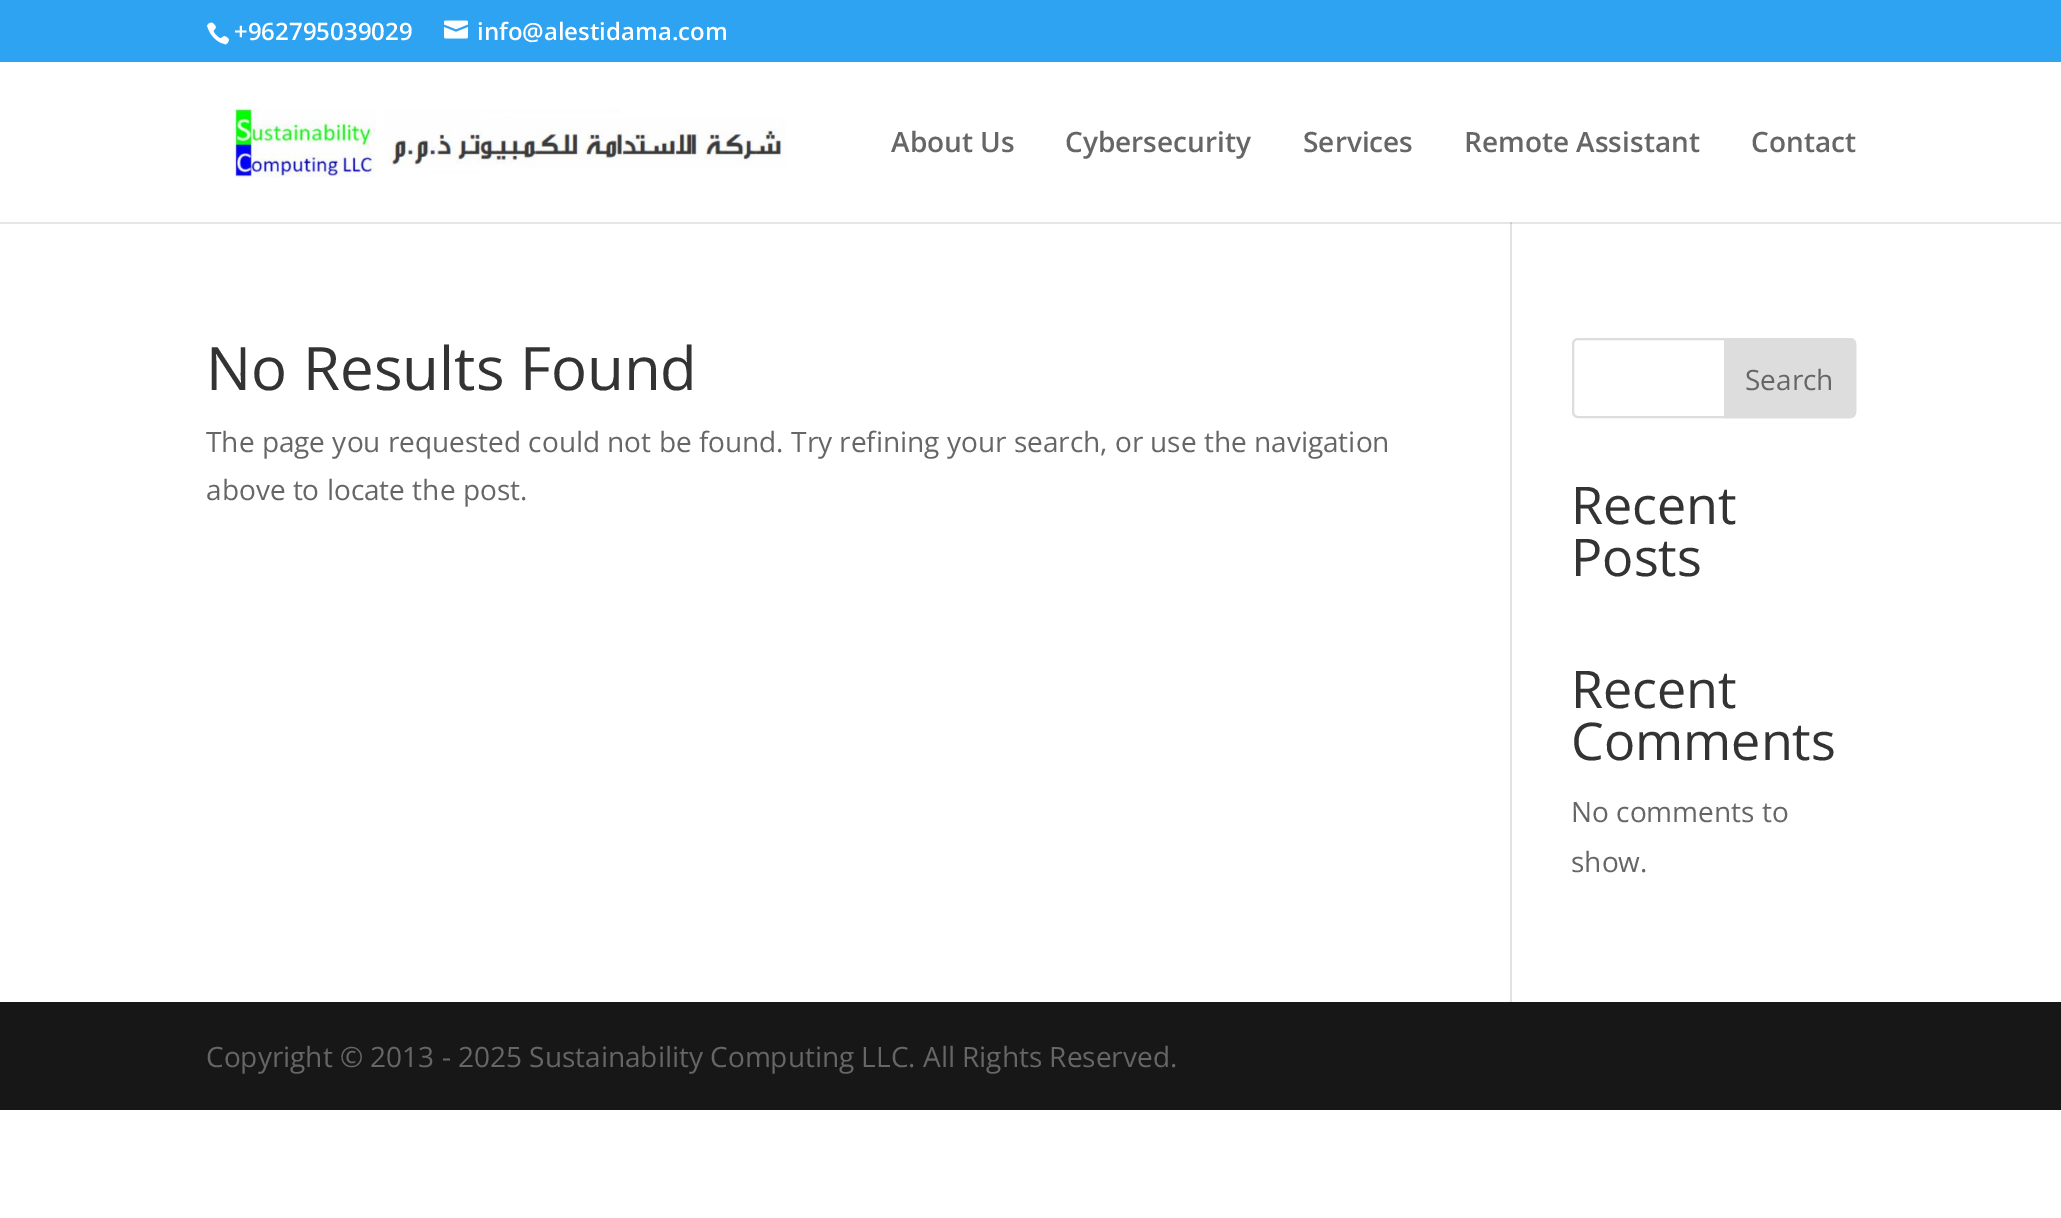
%!PS
<< /PageSize [2061 1218] >> setpagedevice
/m/moveto load def
/l/rlineto load def
/c/rcurveto load def
/z/closepath load def
/f/fill load def
/s/stroke load def
/q/gsave load def
/Q_/grestore load def
/w/setlinewidth load def
/C { dup -16 bitshift 255 div exch dup -8 bitshift 255 and 255 div exch 255 and 255 div setrgbcolor } def
/F { [ exch dup neg 0 0 3 -1 roll 0 0 ] selectfont } def
/T { moveto show } def
/R { rectfill } def
/Q { 5 dict begin { /r /h /w /y /x } { exch def } forall
  x r add y moveto x w add y 2 copy h add r arct x w add y h add x 1 index r arct
  x y h add x y r arct x y 2 copy exch w add exch r arct closepath end } def
/I { 5 dict begin { /h /w /y /x /name } { exch def } forall
  gsave x y translate w h scale
  w h 8 [w 0 0 h 0 0] name (r) file false 3 colorimage grestore end } def
0 1218 translate 1 -1 scale
4 setmiterlimit
16#FFFFFF C
0 0 2061 1218 R
16#E6E6E6 C
0 222 2061 2 R
16#2EA3F2 C
0 0 2061 62 R
(1.rgb) 207 22 22 23 I
/OpenSans-SemiBold 24 F
16#FFFFFF C
(+962795039029) 234 40 T
(2.rgb) 444 20 24 19 I
(info@alestidama.com) 477 40 T
(3.rgb) 233 108 554 70 I
/OpenSans-SemiBold 28 F
16#666666 C
(About Us) 891 152 T
(Cybersecurity) 1065 152 T
(Services) 1303 152 T
(Remote Assistant) 1464 152 T
(Contact) 1751 152 T
16#E2E2E2 C
1510 222 2 780 R
16#CBCBCB C
1510 222 2 2 R
/OpenSans-Regular 60 F
16#333333 C
(No Results Found) 206 390 T
/OpenSans-Regular 28 F
16#666666 C
(The page you requested could not be found. Try refining your search, or use the navigation) 206 452 T
(above to locate the post.) 206 500 T
16#DDDDDD C
2 w
1573 339 282 78 5 Q s
1725 339 m 125 0 l 3 0 5 2 5 5 c 0 68 l 0 3 -2 5 -5 5 c -125 0 l z q f Q_
s
16#666666 C
(Search) 1745 390 T
/OpenSans-Regular 52 F
16#333333 C
(Recent) 1571 524 T
(Posts) 1571 576 T
(Recent) 1571 708 T
(Comments) 1571 760 T
/OpenSans-Regular 28 F
16#666666 C
(No comments to) 1571 822 T
(show.) 1571 872 T
16#171717 C
0 1002 2061 108 R
16#666666 C
(Copyright © 2013 - 2025 Sustainability Computing LLC. All Rights Reserved.) 206 1067 T
showpage
